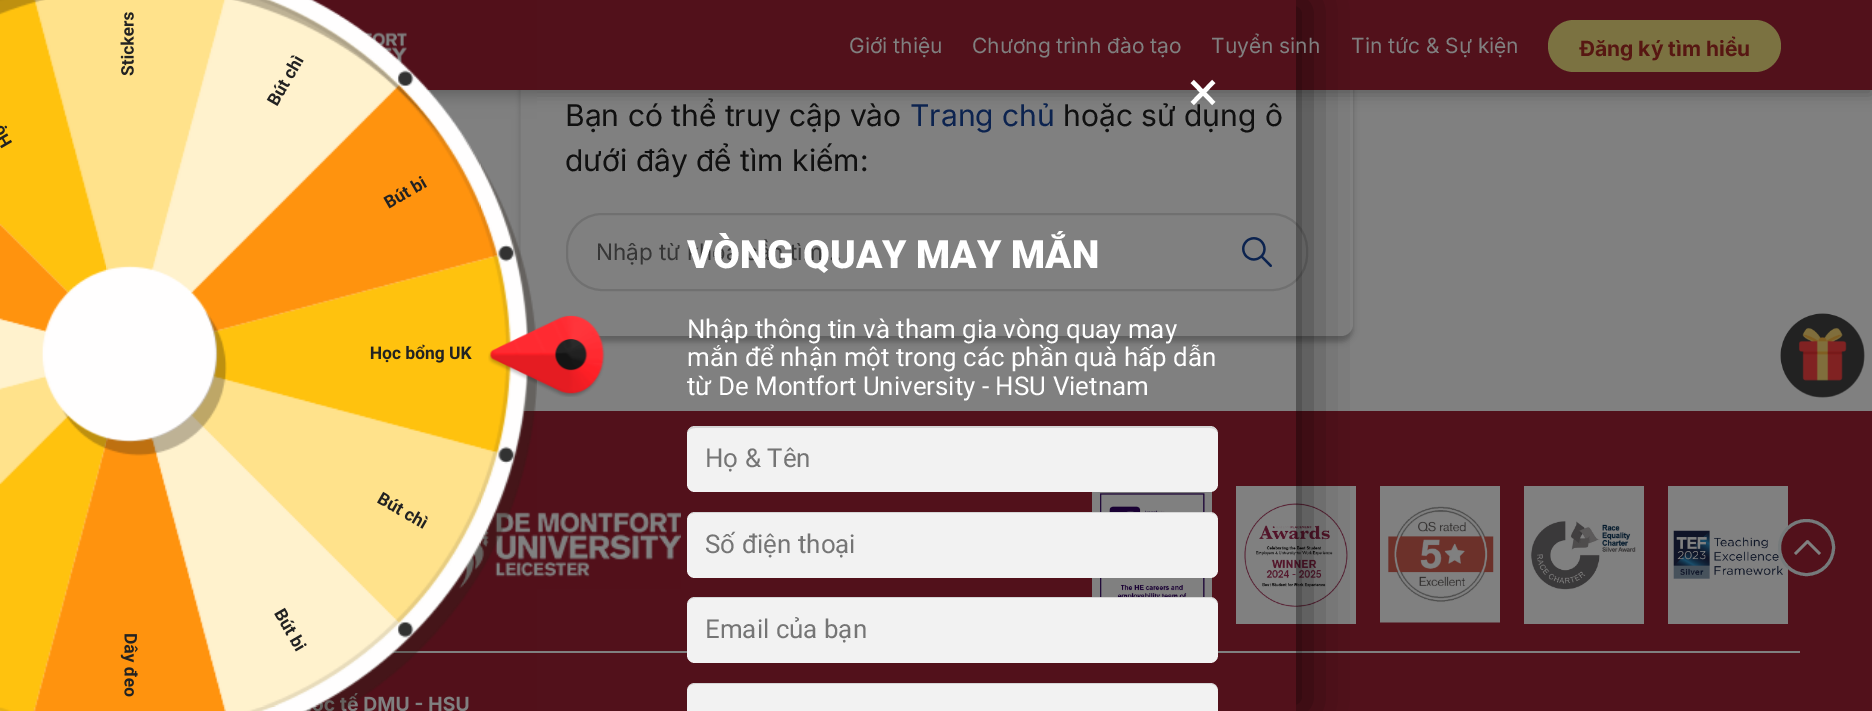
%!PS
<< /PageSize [1872 711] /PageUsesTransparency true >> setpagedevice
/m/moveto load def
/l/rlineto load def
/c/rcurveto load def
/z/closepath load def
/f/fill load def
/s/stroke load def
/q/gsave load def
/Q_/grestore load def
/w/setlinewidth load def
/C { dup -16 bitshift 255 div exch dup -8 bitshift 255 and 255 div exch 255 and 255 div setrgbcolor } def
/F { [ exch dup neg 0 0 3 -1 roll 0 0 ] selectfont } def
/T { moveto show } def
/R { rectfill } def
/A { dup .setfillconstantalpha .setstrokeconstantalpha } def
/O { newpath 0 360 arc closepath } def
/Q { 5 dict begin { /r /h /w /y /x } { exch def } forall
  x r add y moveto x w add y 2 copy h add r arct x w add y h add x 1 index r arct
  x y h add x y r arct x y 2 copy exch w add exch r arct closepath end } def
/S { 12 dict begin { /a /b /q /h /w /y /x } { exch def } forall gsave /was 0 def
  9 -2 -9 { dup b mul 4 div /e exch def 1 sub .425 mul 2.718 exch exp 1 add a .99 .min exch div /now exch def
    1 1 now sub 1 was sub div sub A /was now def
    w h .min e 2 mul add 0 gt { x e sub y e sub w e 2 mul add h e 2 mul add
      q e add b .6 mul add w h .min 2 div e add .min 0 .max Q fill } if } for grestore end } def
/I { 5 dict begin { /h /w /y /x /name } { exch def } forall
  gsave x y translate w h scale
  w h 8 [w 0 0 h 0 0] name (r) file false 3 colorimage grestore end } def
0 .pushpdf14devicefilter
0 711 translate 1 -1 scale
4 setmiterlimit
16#808080 C
0 0 1872 711 R
16#000000 C
521 -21 832 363 12 3 .25 S
16#808080 C
521 -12 832 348 12 Q f
16#000000 C
0 -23 1872 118 0 7.5 .25 S
16#52111B C
309 0 1563 90 R
(4.rgb) 362 32 45 32 I
16#707070 C
2 w
567 214 740 76 35 Q s
(5.rgb) 1242 237 30 30 I
16#52111B C
303 411 1569 300 R
(7.rgb) 1092 491 120 107 I
(8.rgb) 1236 486 120 138 I
(9.rgb) 1380 486 120 137 I
16#808080 C
392 651 1408 2 R
(12.rgb) 459 511 222 78 I
q
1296 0 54 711 rectclip
16#000000 C
12 0 1296 711 0 24 .5 S
Q_
/Inter-Bold 19.5 F
(c tế DMU - HSU) 324 711 T
(2.rgb) 0 0 528 711 I
/Roboto-Bold 17.5 F
16#222222 C
q 134 76 translate -90 rotate 0 0 m (Stickers) show Q_
q 277 107 translate -60 rotate 0 0 m (Bút chì) show Q_
q 389 209 translate -30 rotate 0 0 m (Bút bi) show Q_
(Học bổng UK) 370 359 T
q 376 502 translate 30 rotate 0 0 m (Bút chì) show Q_
q 274 613 translate 60 rotate 0 0 m (Bút bi) show Q_
q 125 633 translate 90 rotate 0 0 m (Dây đeo) show Q_
(1.rgb) 0 0 537 711 I
(3.rgb) 488 315 117 82 I
/Roboto-Regular 57 F
16#FFFFFF C
(×) 1188 111 T
/Inter-Regular 22.5 F
16#363636 C
(Nhập từ khóa cần tìm...) 596 260 T
/Roboto-Black 38.9 F
16#FFFFFF C
(VÒNG QUAY MAY MẮN) 687 268 T
/Roboto-Regular 25.9 F
(Nhập thông tin và tham gia vòng quay may) 687 338 T
(mắn để nhận một trong các phần quà hấp dẫn) 687 366 T
(từ De Montfort University - HSU Vietnam) 687 395 T
16#F2F2F2 C
687 426 531 66 8 Q f
0.12 A
16#000000 C
695 428 m 515 0 l 5 0 8 3 8 7 c 0 -1 l 0 -4 -4 -8 -8 -8 c -515 0 l -4 0 -8 4 -8 8 c 0 1 l 0 -4 3 -7 8 -7 c z f
1 A
16#757575 C
(Họ & Tên) 705 467 T
16#F2F2F2 C
687 512 531 66 8 Q f
0.12 A
16#000000 C
695 513 m 515 0 l 5 0 8 3 8 8 c 0 -1 l 0 -4 -4 -8 -8 -8 c -515 0 l -4 0 -8 4 -8 8 c 0 1 l 0 -5 3 -8 8 -8 c z f
1 A
16#757575 C
(Số điện thoại) 705 553 T
16#F2F2F2 C
687 597 531 66 8 Q f
0.12 A
16#000000 C
695 598 m 515 0 l 5 0 8 4 8 8 c 0 -1 l 0 -4 -4 -8 -8 -8 c -515 0 l -4 0 -8 4 -8 8 c 0 1 l 0 -4 3 -8 8 -8 c z f
1 A
16#757575 C
(Email của bạn) 705 638 T
16#F2F2F2 C
695 683 m 515 0 l 4.5 0 8 3.5 8 8 c 0 20 l -531 0 l 0 -20 l 0 -4.5 3.5 -8 8 -8 c z f
0.12 A
16#000000 C
695 684 m 515 0 l 5 0 8 3 8 8 c 0 -1 l 0 -4 -4 -8 -8 -8 c -515 0 l -4 0 -8 4 -8 8 c 0 1 l 0 -5 3 -8 8 -8 c z f
/Inter-Regular 21 F
1 A
16#808080 C
(Giới thiệu) 849 53 T
(Chương trình đào tạo) 972 53 T
(Tuyển sinh) 1211 53 T
(Tin tức & Sự kiện) 1351 53 T
16#7B7241 C
1548 20 233 52 26 Q f
/Inter-Bold 21 F
16#571712 C
(Đăng ký tìm hiểu) 1579 56 T
/Inter-Regular 30 F
16#101010 C
(Bạn có thể truy cập vào) 565 126 T
16#0C234F C
(Trang chủ) 910 126 T
16#101010 C
(hoặc sử dụng ô) 1063 126 T
(dưới đây để tìm kiếm:) 565 171 T
(6.rgb) 1780 313 85 85 I
(11.rgb) 1668 486 120 138 I
16#52111B C
1806.5 547.5 27 O q f Q_
16#757A7B C
3 w
s
16#808080 C
1807 540 m 2 2 l -13 13 l -2 -2 l z f
1806 542 m 2 -2 l 13 13 l -2 2 l z f
(10.rgb) 1524 486 120 138 I
.poppdf14devicefilter showpage
